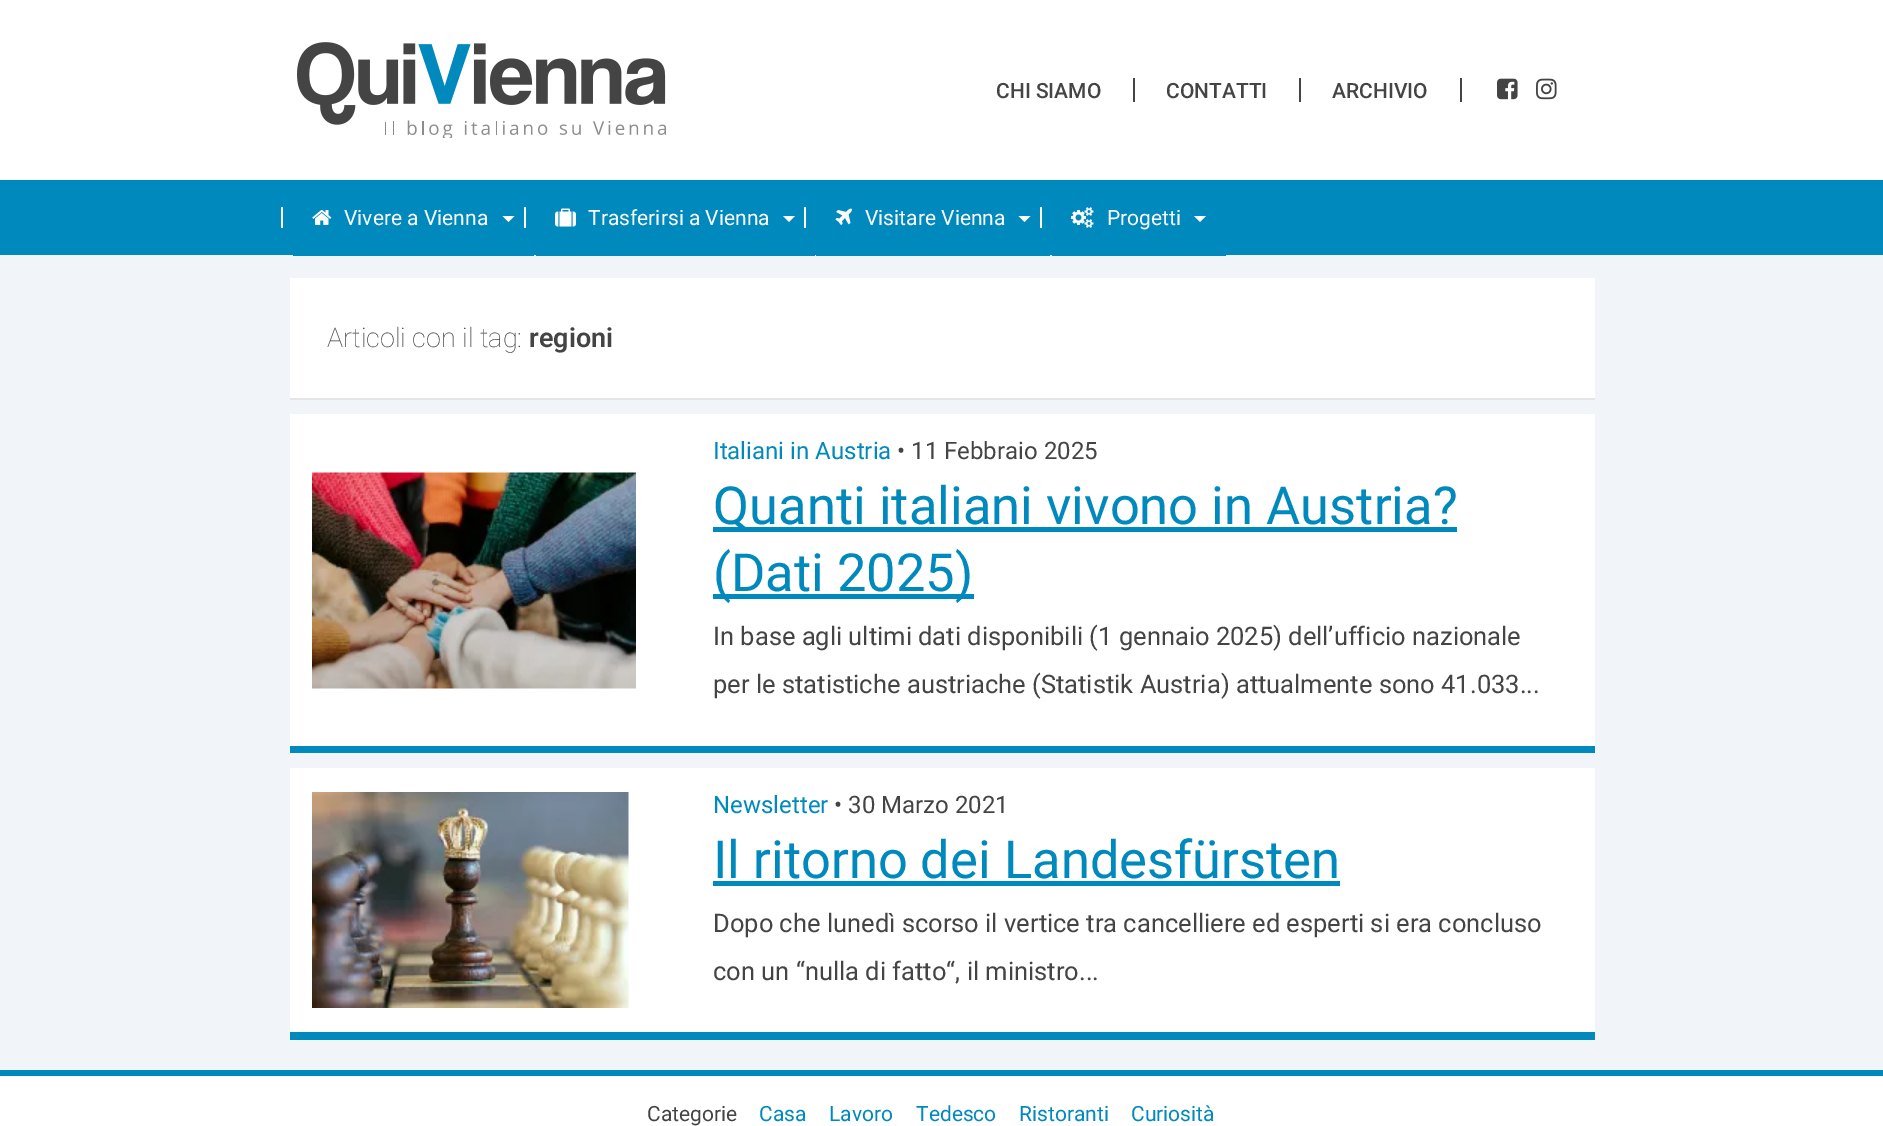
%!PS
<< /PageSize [1883 1126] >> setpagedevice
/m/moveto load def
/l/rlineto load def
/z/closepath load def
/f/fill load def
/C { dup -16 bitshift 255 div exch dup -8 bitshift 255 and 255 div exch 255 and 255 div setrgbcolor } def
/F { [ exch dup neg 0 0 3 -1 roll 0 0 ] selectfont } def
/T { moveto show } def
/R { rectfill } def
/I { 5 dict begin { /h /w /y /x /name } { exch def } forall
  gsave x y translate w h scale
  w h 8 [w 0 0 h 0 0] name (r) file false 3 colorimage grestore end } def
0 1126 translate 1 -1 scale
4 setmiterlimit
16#F1F4F9 C
0 0 1883 1126 R
16#FFFFFF C
0 0 1883 180 R
(1.rgb) 297 42 369 96 I
/Roboto-Medium 21 F
16#444444 C
(CHI SIAMO) 996 98 T
1133 78 2 24 R
(CONTATTI) 1166 98 T
1299 78 2 24 R
(ARCHIVIO) 1332 98 T
1460 78 2 24 R
(2.rgb) 1497 78 21 22 I
(3.rgb) 1536 78 21 22 I
16#0089BD C
0 180 1883 75 R
293 255 241 1 R
16#FFFFFF C
281 207 2 21 R
(4.rgb) 312 210 20 15 I
/Roboto-Regular 21 F
(Vivere a Vienna) 344 225 T
502.5 216 m 12 0 l -6 6 l z f
16#0089BD C
536 255 279 1 R
16#FFFFFF C
524 207 2 21 R
(5.rgb) 555 208 21 19 I
(Trasferirsi a Vienna) 588 225 T
783 216 m 12 0 l -6 6 l z f
16#0089BD C
816 255 234 1 R
16#FFFFFF C
804 207 2 21 R
(6.rgb) 835 208 17 17 I
(Visitare Vienna) 865 225 T
1018.5 216 m 12 0 l -6 6 l z f
16#0089BD C
1052 255 174 1 R
16#FFFFFF C
1040 207 2 21 R
(7.rgb) 1071 207 23 21 I
(Progetti) 1107 225 T
1194 216 m 12 0 l -6 6 l z f
290 278 1305 120 R
16#E5E5E5 C
290 398 1305 2 R
/Roboto-Thin 27 F
16#444444 C
(Articoli con il tag:) 327 347 T
/Roboto-SemiBold 27 F
(regioni) 529 347 T
16#FFFFFF C
290 414 1305 332 R
16#0089BD C
290 746 1305 7 R
(8.rgb) 312 472 324 217 I
/Roboto-Regular 24 F
(Italiani in Austria) 713 459 T
16#444444 C
(• 11 Febbraio 2025) 897 459 T
16#0089BD C
713 527 744 5 R
/Roboto-Regular 52.5 F
(Quanti italiani vivono in Austria?) 713 524 T
713 594 261 5 R
(\(Dati 2025\)) 713 591 T
/Roboto-Regular 25.5 F
16#444444 C
(In base agli ultimi dati disponibili \(1 gennaio 2025\) dell’ufficio nazionale) 713 645 T
(per le statistiche austriache \(Statistik Austria\) attualmente sono 41.033...) 713 693 T
16#FFFFFF C
290 768 1305 264 R
16#0089BD C
290 1032 1305 8 R
(9.rgb) 312 792 317 216 I
/Roboto-Regular 24 F
(Newsletter) 713 813 T
16#444444 C
(• 30 Marzo 2021) 834 813 T
/Roboto-Regular 52.5 F
16#0089BD C
(Il ritorno dei Landesfürsten) 713 878 T
713 881 627 5 R
/Roboto-Regular 25.5 F
16#444444 C
(Dopo che lunedì scorso il vertice tra cancelliere ed esperti si era concluso) 713 932 T
(con un “nulla di fatto“, il ministro...) 713 980 T
16#FFFFFF C
0 1076 1883 50 R
16#0089BD C
0 1070 1883 6 R
/Roboto-Regular 21 F
16#444444 C
(Categorie) 647 1121 T
16#0089BD C
(Casa) 759 1121 T
(Lavoro) 829 1121 T
(Tedesco) 916 1121 T
(Ristoranti) 1019 1121 T
(Curiosità) 1131 1121 T
showpage
